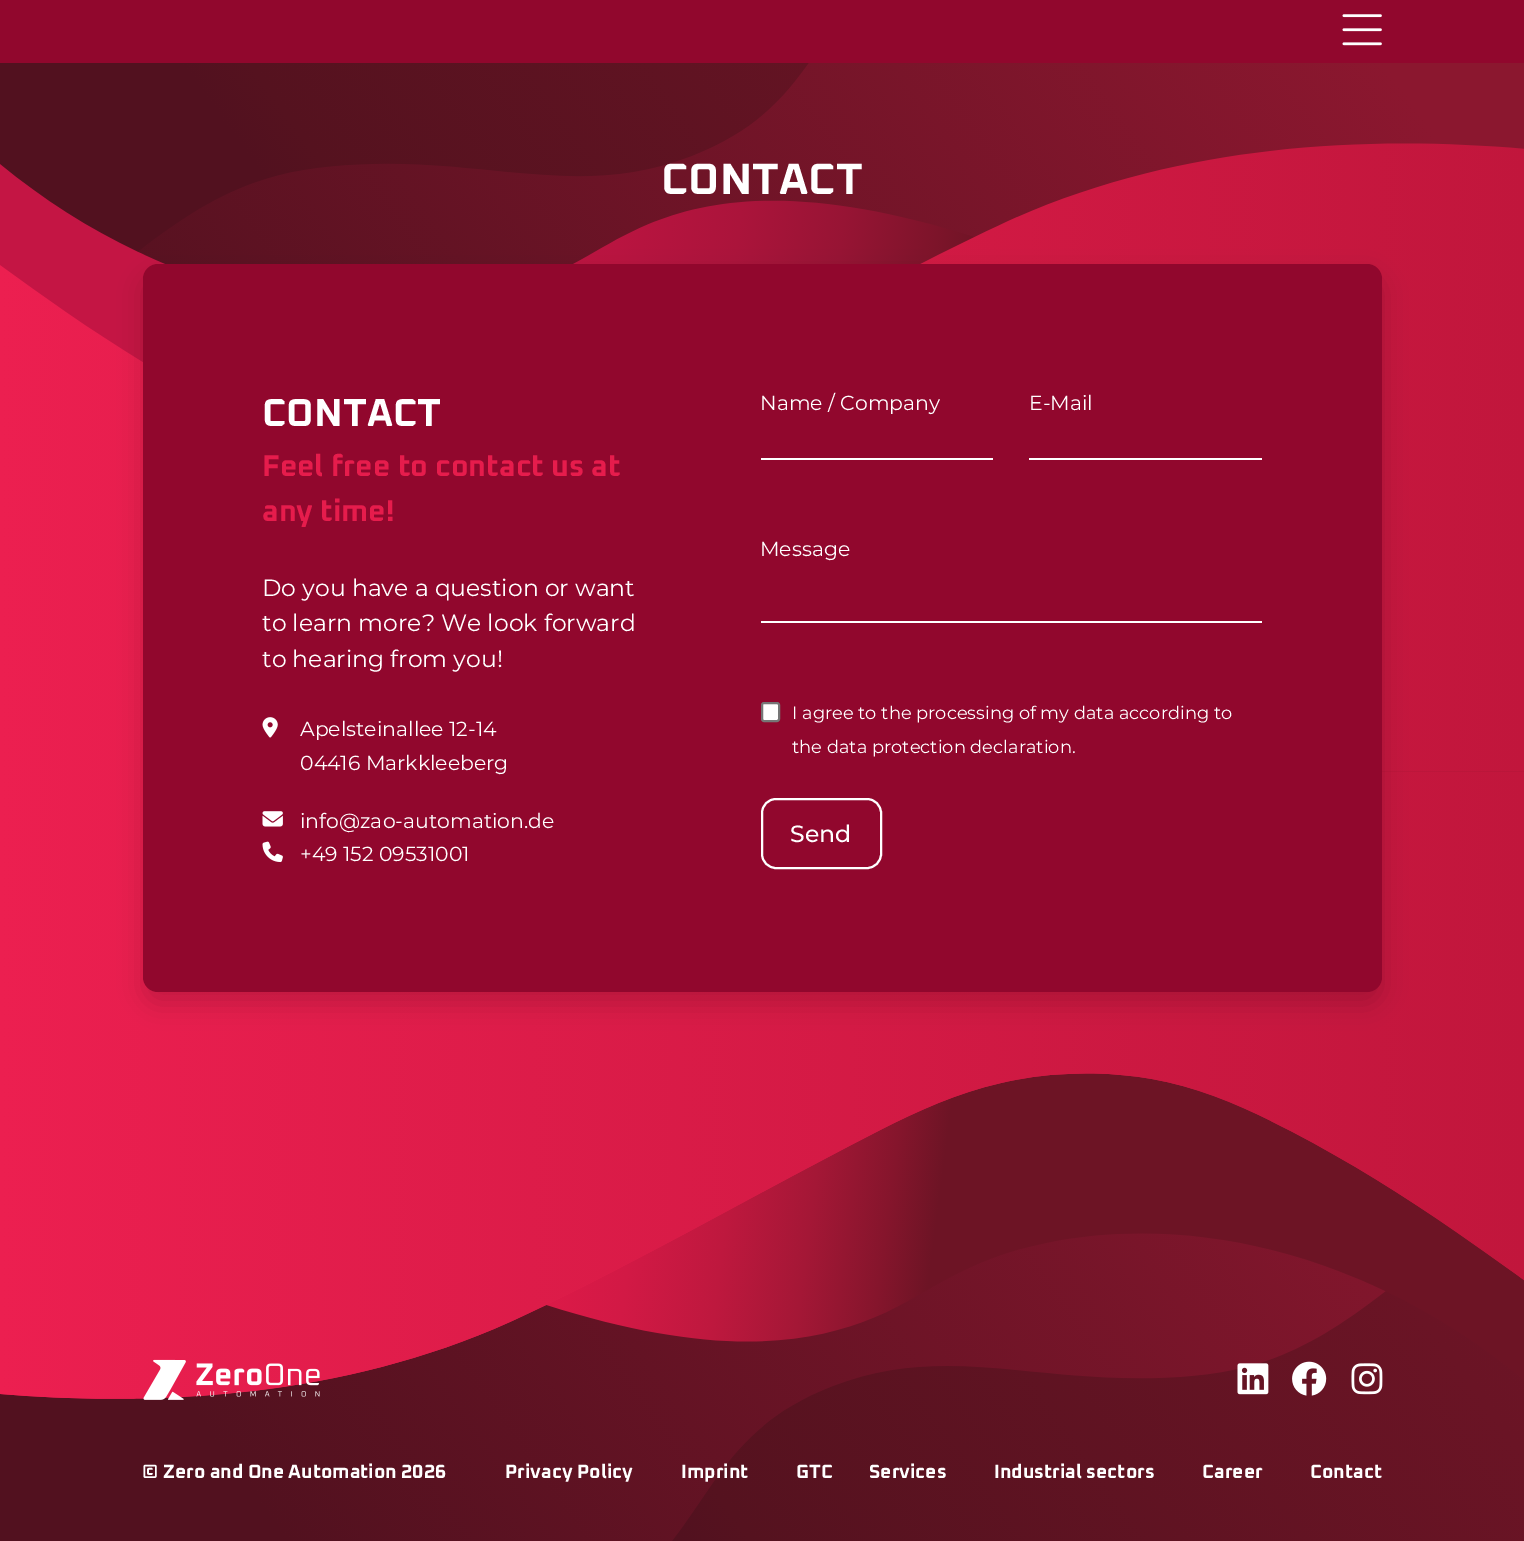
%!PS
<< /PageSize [1524 1541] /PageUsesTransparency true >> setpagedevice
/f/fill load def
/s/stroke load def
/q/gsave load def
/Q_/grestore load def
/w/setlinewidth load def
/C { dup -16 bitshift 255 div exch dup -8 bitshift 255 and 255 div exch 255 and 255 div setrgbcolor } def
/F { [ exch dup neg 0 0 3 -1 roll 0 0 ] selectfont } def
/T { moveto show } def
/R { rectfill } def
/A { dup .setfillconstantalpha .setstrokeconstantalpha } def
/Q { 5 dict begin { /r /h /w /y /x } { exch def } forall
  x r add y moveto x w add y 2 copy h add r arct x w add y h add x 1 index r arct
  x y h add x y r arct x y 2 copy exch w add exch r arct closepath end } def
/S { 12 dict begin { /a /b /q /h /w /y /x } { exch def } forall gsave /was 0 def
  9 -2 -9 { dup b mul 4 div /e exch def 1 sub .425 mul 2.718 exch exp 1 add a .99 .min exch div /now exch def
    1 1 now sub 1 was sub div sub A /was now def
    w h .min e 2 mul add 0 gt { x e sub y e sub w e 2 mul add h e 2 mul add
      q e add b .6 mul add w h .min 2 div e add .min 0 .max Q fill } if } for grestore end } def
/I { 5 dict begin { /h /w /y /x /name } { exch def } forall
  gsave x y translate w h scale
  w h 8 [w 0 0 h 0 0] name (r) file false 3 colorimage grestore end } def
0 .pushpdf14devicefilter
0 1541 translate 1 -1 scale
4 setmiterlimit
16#FFFFFF C
0 0 1524 1541 R
(1.rgb) 0 63 1524 1478 I
16#91072D C
0 0 1524 63 R
(2.rgb) 1342 14 40 32 I
/Oxanium-ExtraLight 44 F
16#FFFFFF C
(CONTACT) 661 194 T
16#000000 C
143 276 1239 728 15 12 .15 S
16#91072D C
143 264 1239 728 15 Q f
/Oxanium-ExtraLight 39 F
16#FFFFFF C
(CONTACT) 262 426 T
/Oxanium-ExtraLight 30 F
16#E61C4C C
(Feel free to contact us at) 262 476 T
(any time!) 262 521 T
/Montserrat-Thin 23.5 F
16#FFFFFF C
(Do you have a question or want) 262 596 T
(to learn more? We look forward) 262 631 T
(to hearing from you!) 262 667 T
(3.rgb) 262 717 16 21 I
/Montserrat-Thin 20.4 F
(Apelsteinallee 12-14) 300 736 T
(04416 Markkleeberg) 300 770 T
(4.rgb) 262 811 21 16 I
(info@zao-automation.de) 300 828 T
(5.rgb) 262 841 21 22 I
(+49 152 09531001) 300 861 T
(Name / Company) 760 410 T
761 458 232 2 R
(E-Mail) 1029 410 T
1029 458 233 2 R
(Message) 760 556 T
761 621 501 2 R
762 703 17 18 2 Q q f Q_
16#767676 C
2 w
s
/Montserrat-Thin 17.85 F
16#FFFFFF C
(I agree to the processing of my data according to) 792 719 T
(the data protection declaration.) 792 753 T
762 799 119 69 14 Q s
/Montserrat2-Thin 23.5 F
(Send) 790 842 T
(6.rgb) 143 1359 177 41 I
(7.rgb) 1237 1363 32 32 I
(8.rgb) 1292 1361 35 35 I
(9.rgb) 1351 1363 32 32 I
/Oxanium-ExtraLight 19.25 F
(© Zero and One Automation 2026) 142 1478 T
(Privacy Policy) 505 1478 T
(Imprint) 681 1478 T
(GTC) 796 1478 T
(Services) 869 1478 T
(Industrial sectors) 994 1478 T
(Career) 1202 1478 T
(Contact) 1310 1478 T
.poppdf14devicefilter showpage
